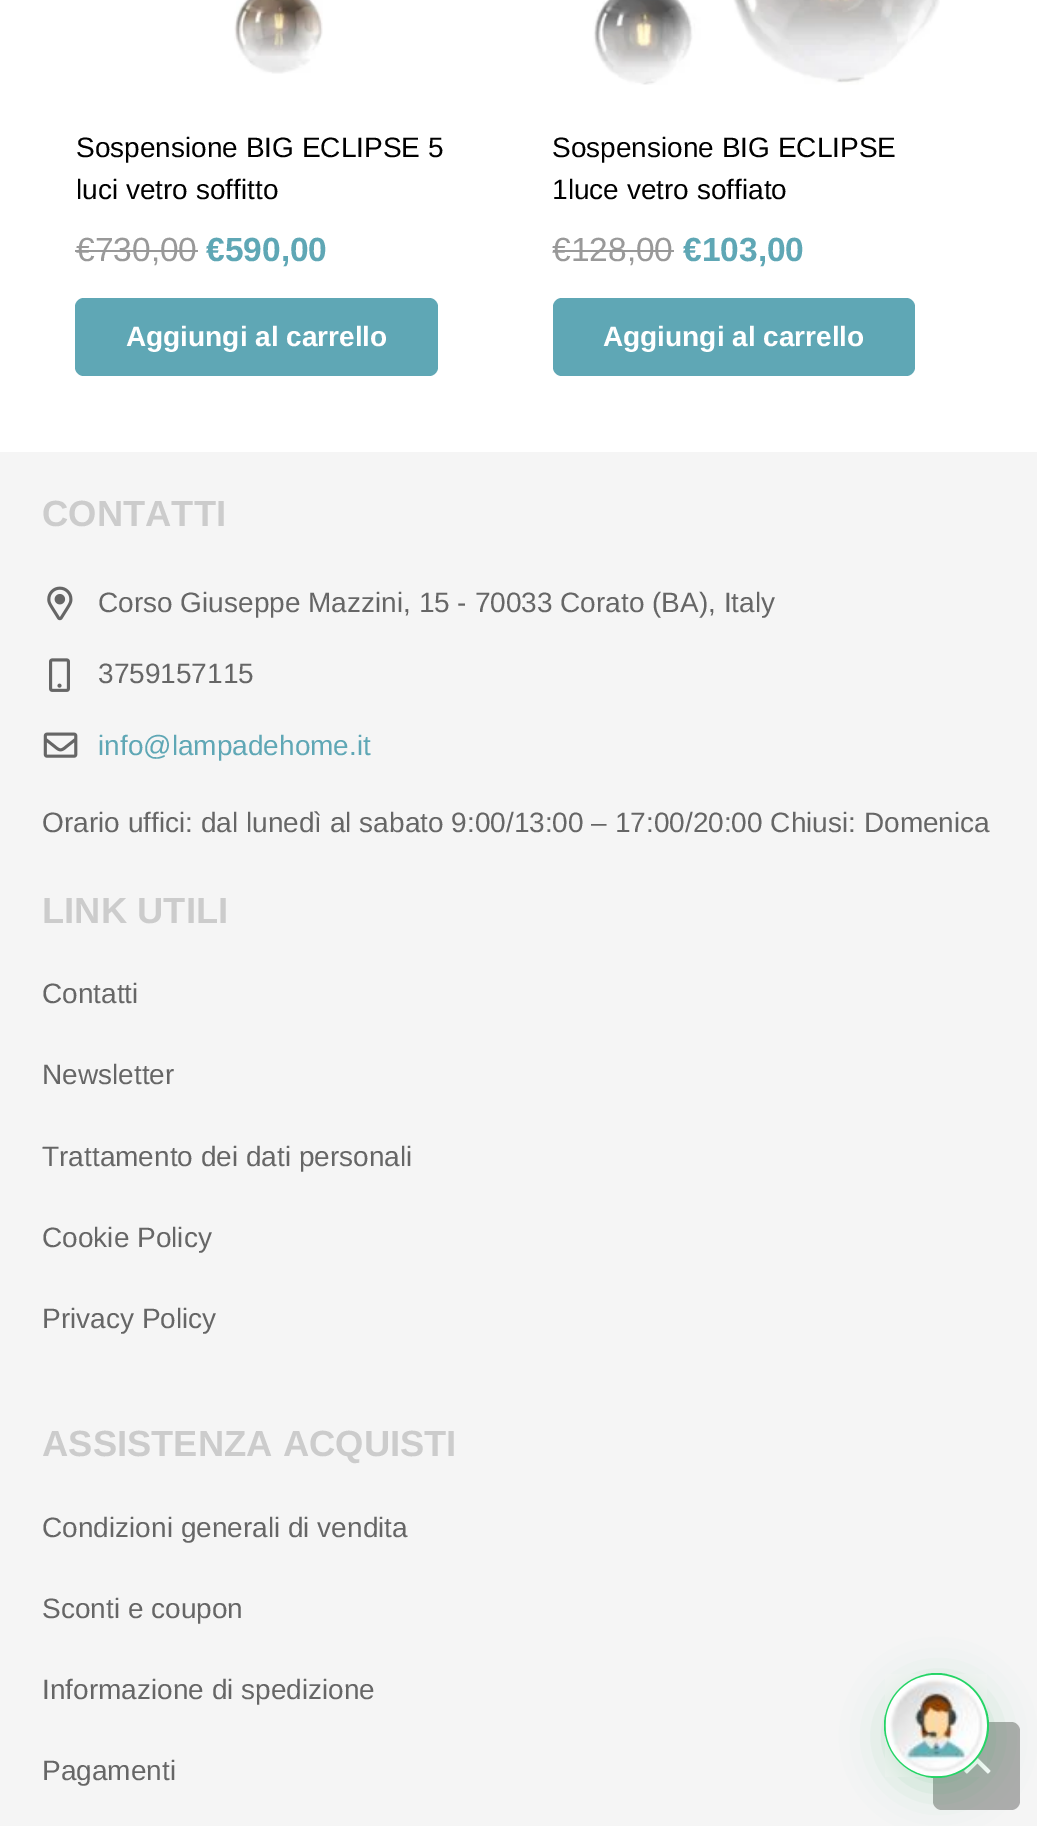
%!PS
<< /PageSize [1037 1826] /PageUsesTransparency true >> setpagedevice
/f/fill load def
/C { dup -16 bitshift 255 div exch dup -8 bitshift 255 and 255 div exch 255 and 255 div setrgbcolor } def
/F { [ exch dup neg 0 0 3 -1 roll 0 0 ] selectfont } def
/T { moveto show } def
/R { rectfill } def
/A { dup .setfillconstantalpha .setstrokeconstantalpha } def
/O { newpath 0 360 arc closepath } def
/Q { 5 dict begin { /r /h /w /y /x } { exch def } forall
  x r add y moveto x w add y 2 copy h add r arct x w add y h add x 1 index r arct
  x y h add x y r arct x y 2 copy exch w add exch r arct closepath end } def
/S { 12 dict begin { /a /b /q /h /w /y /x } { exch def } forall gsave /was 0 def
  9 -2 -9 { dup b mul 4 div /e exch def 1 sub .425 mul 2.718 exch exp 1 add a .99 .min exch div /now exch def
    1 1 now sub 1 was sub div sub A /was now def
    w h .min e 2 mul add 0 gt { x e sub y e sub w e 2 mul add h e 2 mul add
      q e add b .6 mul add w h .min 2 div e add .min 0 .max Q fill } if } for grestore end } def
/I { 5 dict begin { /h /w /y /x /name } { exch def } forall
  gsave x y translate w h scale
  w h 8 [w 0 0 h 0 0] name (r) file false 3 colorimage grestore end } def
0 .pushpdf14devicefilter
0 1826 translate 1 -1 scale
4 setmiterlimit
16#FFFFFF C
0 0 1037 1826 R
(1.rgb) 234 0 89 74 I
/LiberationSans-Regular 28 F
16#000000 C
(Sospensione BIG ECLIPSE 5) 76 157 T
(luci vetro soffitto) 76 199 T
/LiberationSans-Regular 33.5 F
16#999999 C
(€730,00) 76 261 T
75 250 123 2 R
/LiberationSans-Bold 33.5 F
16#5FA7B5 C
(€590,00) 206 261 T
75 298 363 78 9 Q f
/LiberationSans-Bold 28 F
16#FFFFFF C
(Aggiungi al carrello) 126 346 T
(2.rgb) 593 0 347 85 I
/LiberationSans-Regular 28 F
16#000000 C
(Sospensione BIG ECLIPSE) 552 157 T
(1luce vetro soffiato) 552 199 T
/LiberationSans-Regular 33.5 F
16#999999 C
(€128,00) 552 261 T
553 250 121 2 R
/LiberationSans-Bold 33.5 F
16#5FA7B5 C
(€103,00) 683 261 T
553 298 362 78 9 Q f
/LiberationSans-Bold 28 F
16#FFFFFF C
(Aggiungi al carrello) 603 346 T
16#F5F5F5 C
0 452 1037 1374 R
/LiberationSans-Bold 36.4 F
16#CCCCCC C
(CONTATTI) 42 526 T
(3.rgb) 47 586 26 35 I
/LiberationSans-Regular 28 F
16#666666 C
(Corso Giuseppe Mazzini, 15 - 70033 Corato \(BA\), Italy) 98 612 T
(4.rgb) 49 658 21 34 I
(3759157115) 98 683 T
(5.rgb) 43 732 35 26 I
16#5FA7B5 C
(info@lampadehome.it) 98 755 T
16#666666 C
(Orario uffici: dal lunedì al sabato 9:00/13:00 – 17:00/20:00 Chiusi: Domenica) 42 832 T
/LiberationSans-Bold 36.4 F
16#CCCCCC C
(LINK UTILI) 42 923 T
/LiberationSans-Regular 28 F
16#666666 C
(Contatti) 42 1003 T
(Newsletter) 42 1084 T
(Trattamento dei dati personali) 42 1166 T
(Cookie Policy) 42 1247 T
(Privacy Policy) 42 1328 T
/LiberationSans-Bold 36.4 F
16#CCCCCC C
(ASSISTENZA ACQUISTI) 42 1456 T
/LiberationSans-Regular 28 F
16#666666 C
(Condizioni generali di vendita) 42 1537 T
(Sconti e coupon) 42 1618 T
(Informazione di spedizione) 42 1699 T
(Pagamenti) 42 1780 T
16#ACACAC C
933 1722 87 88 9 Q f
(7.rgb) 964 1758 27 16 I
16#1EA951 C
886 1684 105 105 52.5 21 .24 S
16#25D466 C
936.5 1725.5 52.5 O f
(6.rgb) 885 1674 102 103 I
.poppdf14devicefilter showpage
